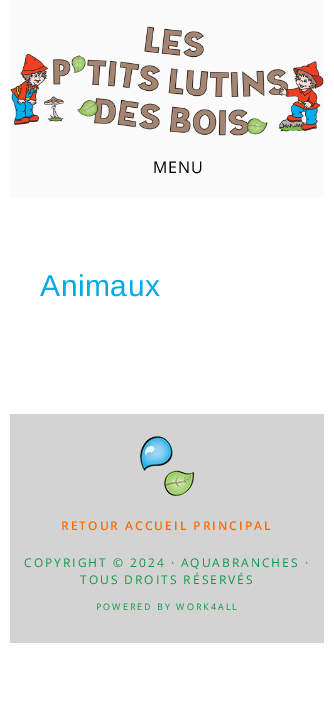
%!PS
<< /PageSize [334 716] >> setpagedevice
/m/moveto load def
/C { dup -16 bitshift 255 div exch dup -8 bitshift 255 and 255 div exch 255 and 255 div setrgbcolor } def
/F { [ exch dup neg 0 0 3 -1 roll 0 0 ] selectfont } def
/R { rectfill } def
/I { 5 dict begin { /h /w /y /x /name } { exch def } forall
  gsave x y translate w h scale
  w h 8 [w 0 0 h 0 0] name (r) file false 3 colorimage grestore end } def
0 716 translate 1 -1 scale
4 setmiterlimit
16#FFFFFF C
0 0 334 716 R
16#FBFBFB C
10 0 314 198 R
(1.rgb) 10 26 314 110 I
/OpenSans-Regular 16 F
16#000000 C
153 173 m 1 0 (MENU) ashow
/LiberationSans-Regular 30 F
16#00ABE5 C
40 296 m .5 0 (Animaux) ashow
16#D3D3D3 C
10 414 314 229 R
(2.rgb) 140 436 54 60 I
/OpenSans-SemiBold 12 F
16#FF6A00 C
61 530 m 2 0 (RETOUR ACCUEIL PRINCIPAL) ashow
/OpenSans-Regular 12 F
16#0E9847 C
24 567 m 2 0 (COPYRIGHT © 2024 · AQUABRANCHES ·) ashow
80 584 m 2 0 (TOUS DROITS RÉSERVÉS) ashow
/OpenSans-Regular 9 F
96 610 m 2 0 (POWERED BY WORK4ALL) ashow
showpage
